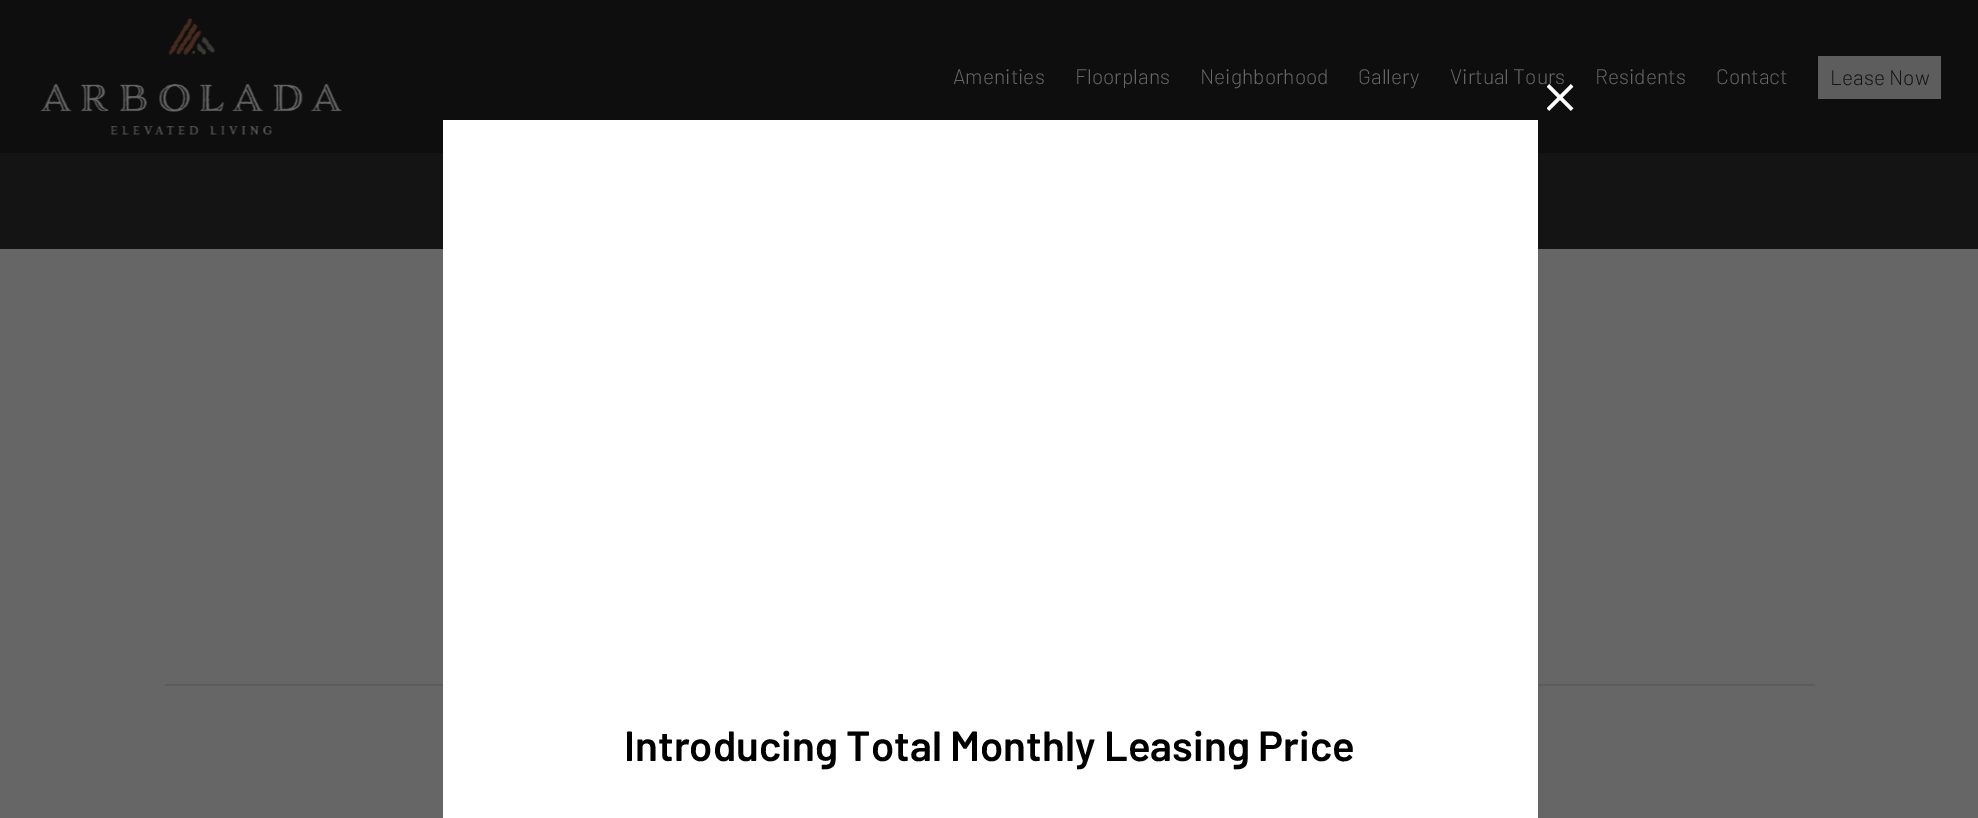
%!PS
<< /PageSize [1978 818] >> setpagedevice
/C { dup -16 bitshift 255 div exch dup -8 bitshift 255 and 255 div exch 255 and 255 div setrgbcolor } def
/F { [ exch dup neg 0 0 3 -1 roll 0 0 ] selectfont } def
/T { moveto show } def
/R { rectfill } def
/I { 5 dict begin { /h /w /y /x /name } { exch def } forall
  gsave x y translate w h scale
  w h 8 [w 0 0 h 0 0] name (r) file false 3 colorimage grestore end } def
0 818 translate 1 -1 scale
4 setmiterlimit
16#666666 C
0 0 1978 818 R
16#0E0E0E C
0 0 1978 153 R
(1.rgb) 40 18 302 117 I
/Barlow-Light 21 F
16#666666 C
(Amenities) 953 84 T
(Floorplans) 1075 84 T
(Neighborhood) 1200 84 T
(Gallery) 1358 84 T
(Virtual Tours) 1450 84 T
(Residents) 1595 84 T
(Contact) 1716 84 T
16#5D5D5D C
1818 56 123 43 R
16#141414 C
(Lease Now) 1830 85 T
0 153 1978 96 R
16#5C5C5C C
165 684 1650 2 R
16#FFFFFF C
443 120 1095 698 R
(2.rgb) 1547 84 27 27 I
/Barlow-SemiBold 42 F
16#000000 C
(Introducing Total Monthly Leasing Price) 624 761 T
showpage
